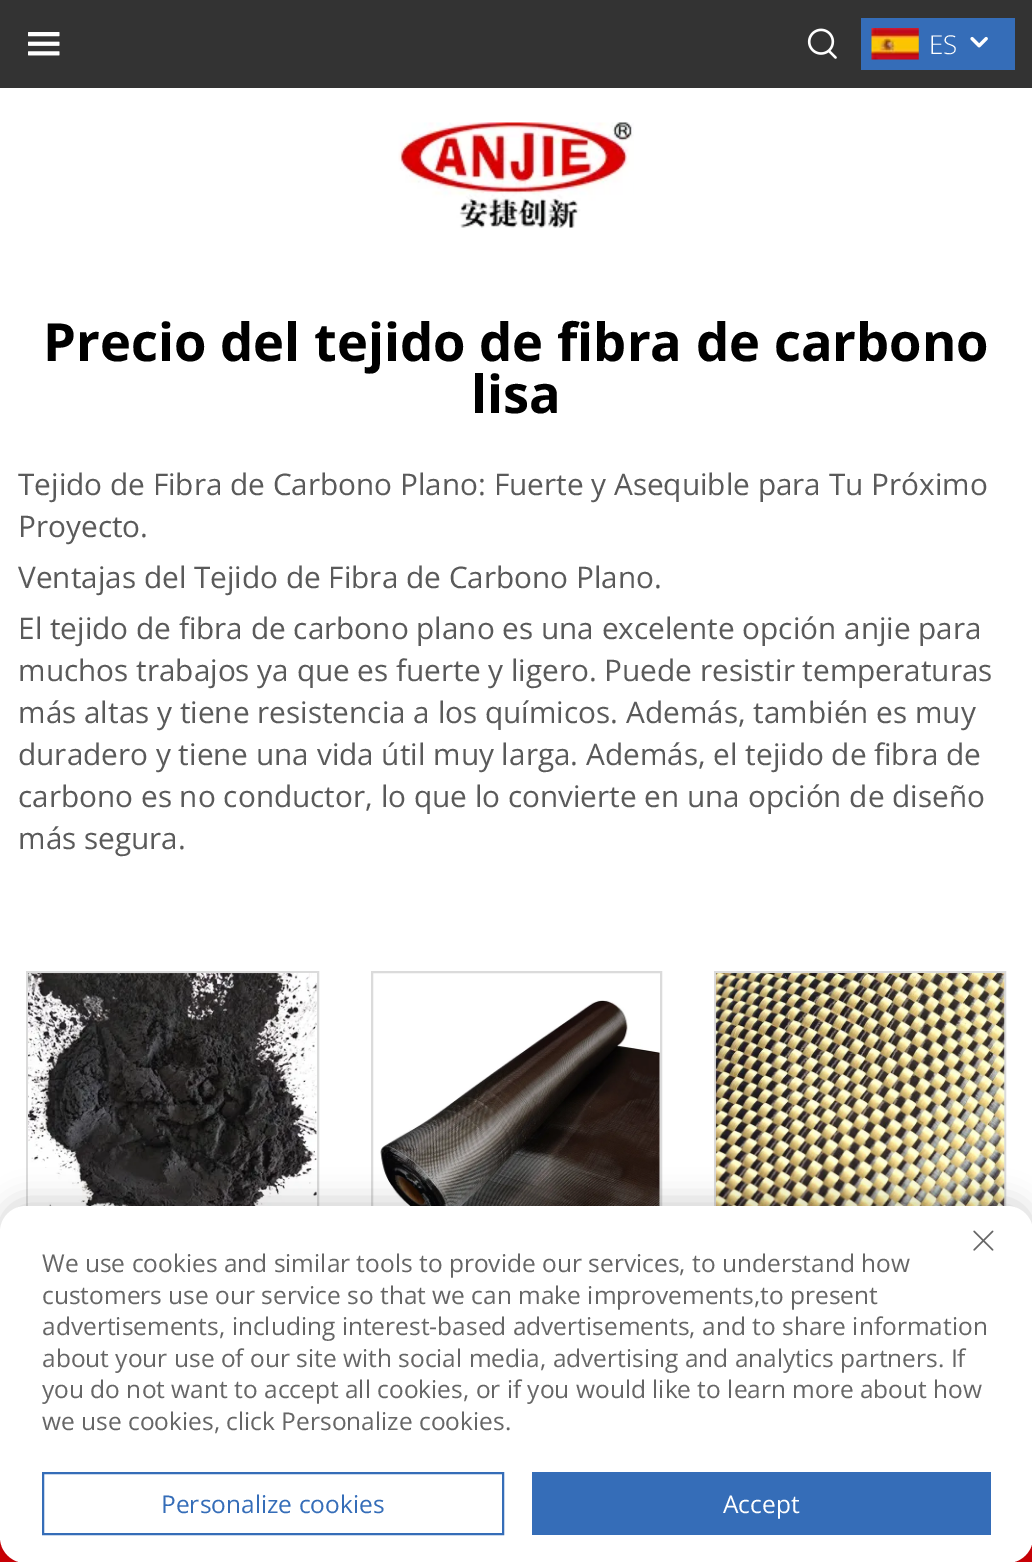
%!PS
<< /PageSize [1032 1562] /PageUsesTransparency true >> setpagedevice
/f/fill load def
/w/setlinewidth load def
/C { dup -16 bitshift 255 div exch dup -8 bitshift 255 and 255 div exch 255 and 255 div setrgbcolor } def
/F { [ exch dup neg 0 0 3 -1 roll 0 0 ] selectfont } def
/T { moveto show } def
/R { rectfill } def
/A { dup .setfillconstantalpha .setstrokeconstantalpha } def
/Q { 5 dict begin { /r /h /w /y /x } { exch def } forall
  x r add y moveto x w add y 2 copy h add r arct x w add y h add x 1 index r arct
  x y h add x y r arct x y 2 copy exch w add exch r arct closepath end } def
/S { 12 dict begin { /a /b /q /h /w /y /x } { exch def } forall gsave /was 0 def
  9 -2 -9 { dup b mul 4 div /e exch def 1 sub .425 mul 2.718 exch exp 1 add a .99 .min exch div /now exch def
    1 1 now sub 1 was sub div sub A /was now def
    w h .min e 2 mul add 0 gt { x e sub y e sub w e 2 mul add h e 2 mul add
      q e add b .6 mul add w h .min 2 div e add .min 0 .max Q fill } if } for grestore end } def
/I { 5 dict begin { /h /w /y /x /name } { exch def } forall
  gsave x y translate w h scale
  w h 8 [w 0 0 h 0 0] name (r) file false 3 colorimage grestore end } def
0 .pushpdf14devicefilter
0 1562 translate 1 -1 scale
4 setmiterlimit
16#FFFFFF C
0 0 1032 1562 R
16#333333 C
0 0 1032 88 R
(1.rgb) 28 32 32 24 I
(2.rgb) 807 28 30 31 I
16#356DB8 C
861 18 154 52 R
(3.rgb) 871 28 48 32 I
/OpenSans-Light 26 F
16#FFFFFF C
(ES) 929 54 T
(4.rgb) 970 36 18 12 I
(5.rgb) 398 122 236 106 I
/OpenSans-Bold 52.5 F
16#000000 C
(Precio del tejido de fibra de carbono) 43 361 T
(lisa) 471 413 T
/OpenSans-Regular 29.75 F
16#5A5A5A C
(Tejido de Fibra de Carbono Plano: Fuerte y Asequible para Tu Próximo) 18 495 T
(Proyecto.) 18 537 T
(Ventajas del Tejido de Fibra de Carbono Plano.) 18 588 T
(El tejido de fibra de carbono plano es una excelente opción anjie para) 18 639 T
(muchos trabajos ya que es fuerte y ligero. Puede resistir temperaturas) 18 681 T
(más altas y tiene resistencia a los químicos. Además, también es muy) 18 723 T
(duradero y tiene una vida útil muy larga. Además, el tejido de fibra de) 18 765 T
(carbono es no conductor, lo que lo convierte en una opción de diseño) 18 807 T
(más segura.) 18 849 T
16#DBDBDB C
2 w
27 972 291 291 rectstroke
(6.rgb) 28 973 289 233 I
372 972 289 291 rectstroke
(7.rgb) 380 1000 280 206 I
715 972 290 291 rectstroke
(8.rgb) 715 973 290 233 I
16#CD0005 C
0 1537 1032 25 R
16#000000 C
0 1199 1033 357 26 14 .16 S
16#FFFFFF C
0 1206 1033 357 26 Q f
(9.rgb) 973 1230 21 21 I
/OpenSans-Regular 24.5 F
16#666666 C
(We use cookies and similar tools to provide our services, to understand how) 42 1272 T
(customers use our service so that we can make improvements,to present) 42 1304 T
(advertisements, including interest-based advertisements, and to share information) 42 1335 T
(about your use of our site with social media, advertising and analytics partners. If) 42 1367 T
(you do not want to accept all cookies, or if you would like to learn more about how) 42 1398 T
(we use cookies, click Personalize cookies.) 42 1430 T
16#356DB8 C
43 1473 460 61 rectstroke
(Personalize cookies) 161 1513 T
532 1472 459 63 R
16#FFFFFF C
(Accept) 723 1513 T
.poppdf14devicefilter showpage
